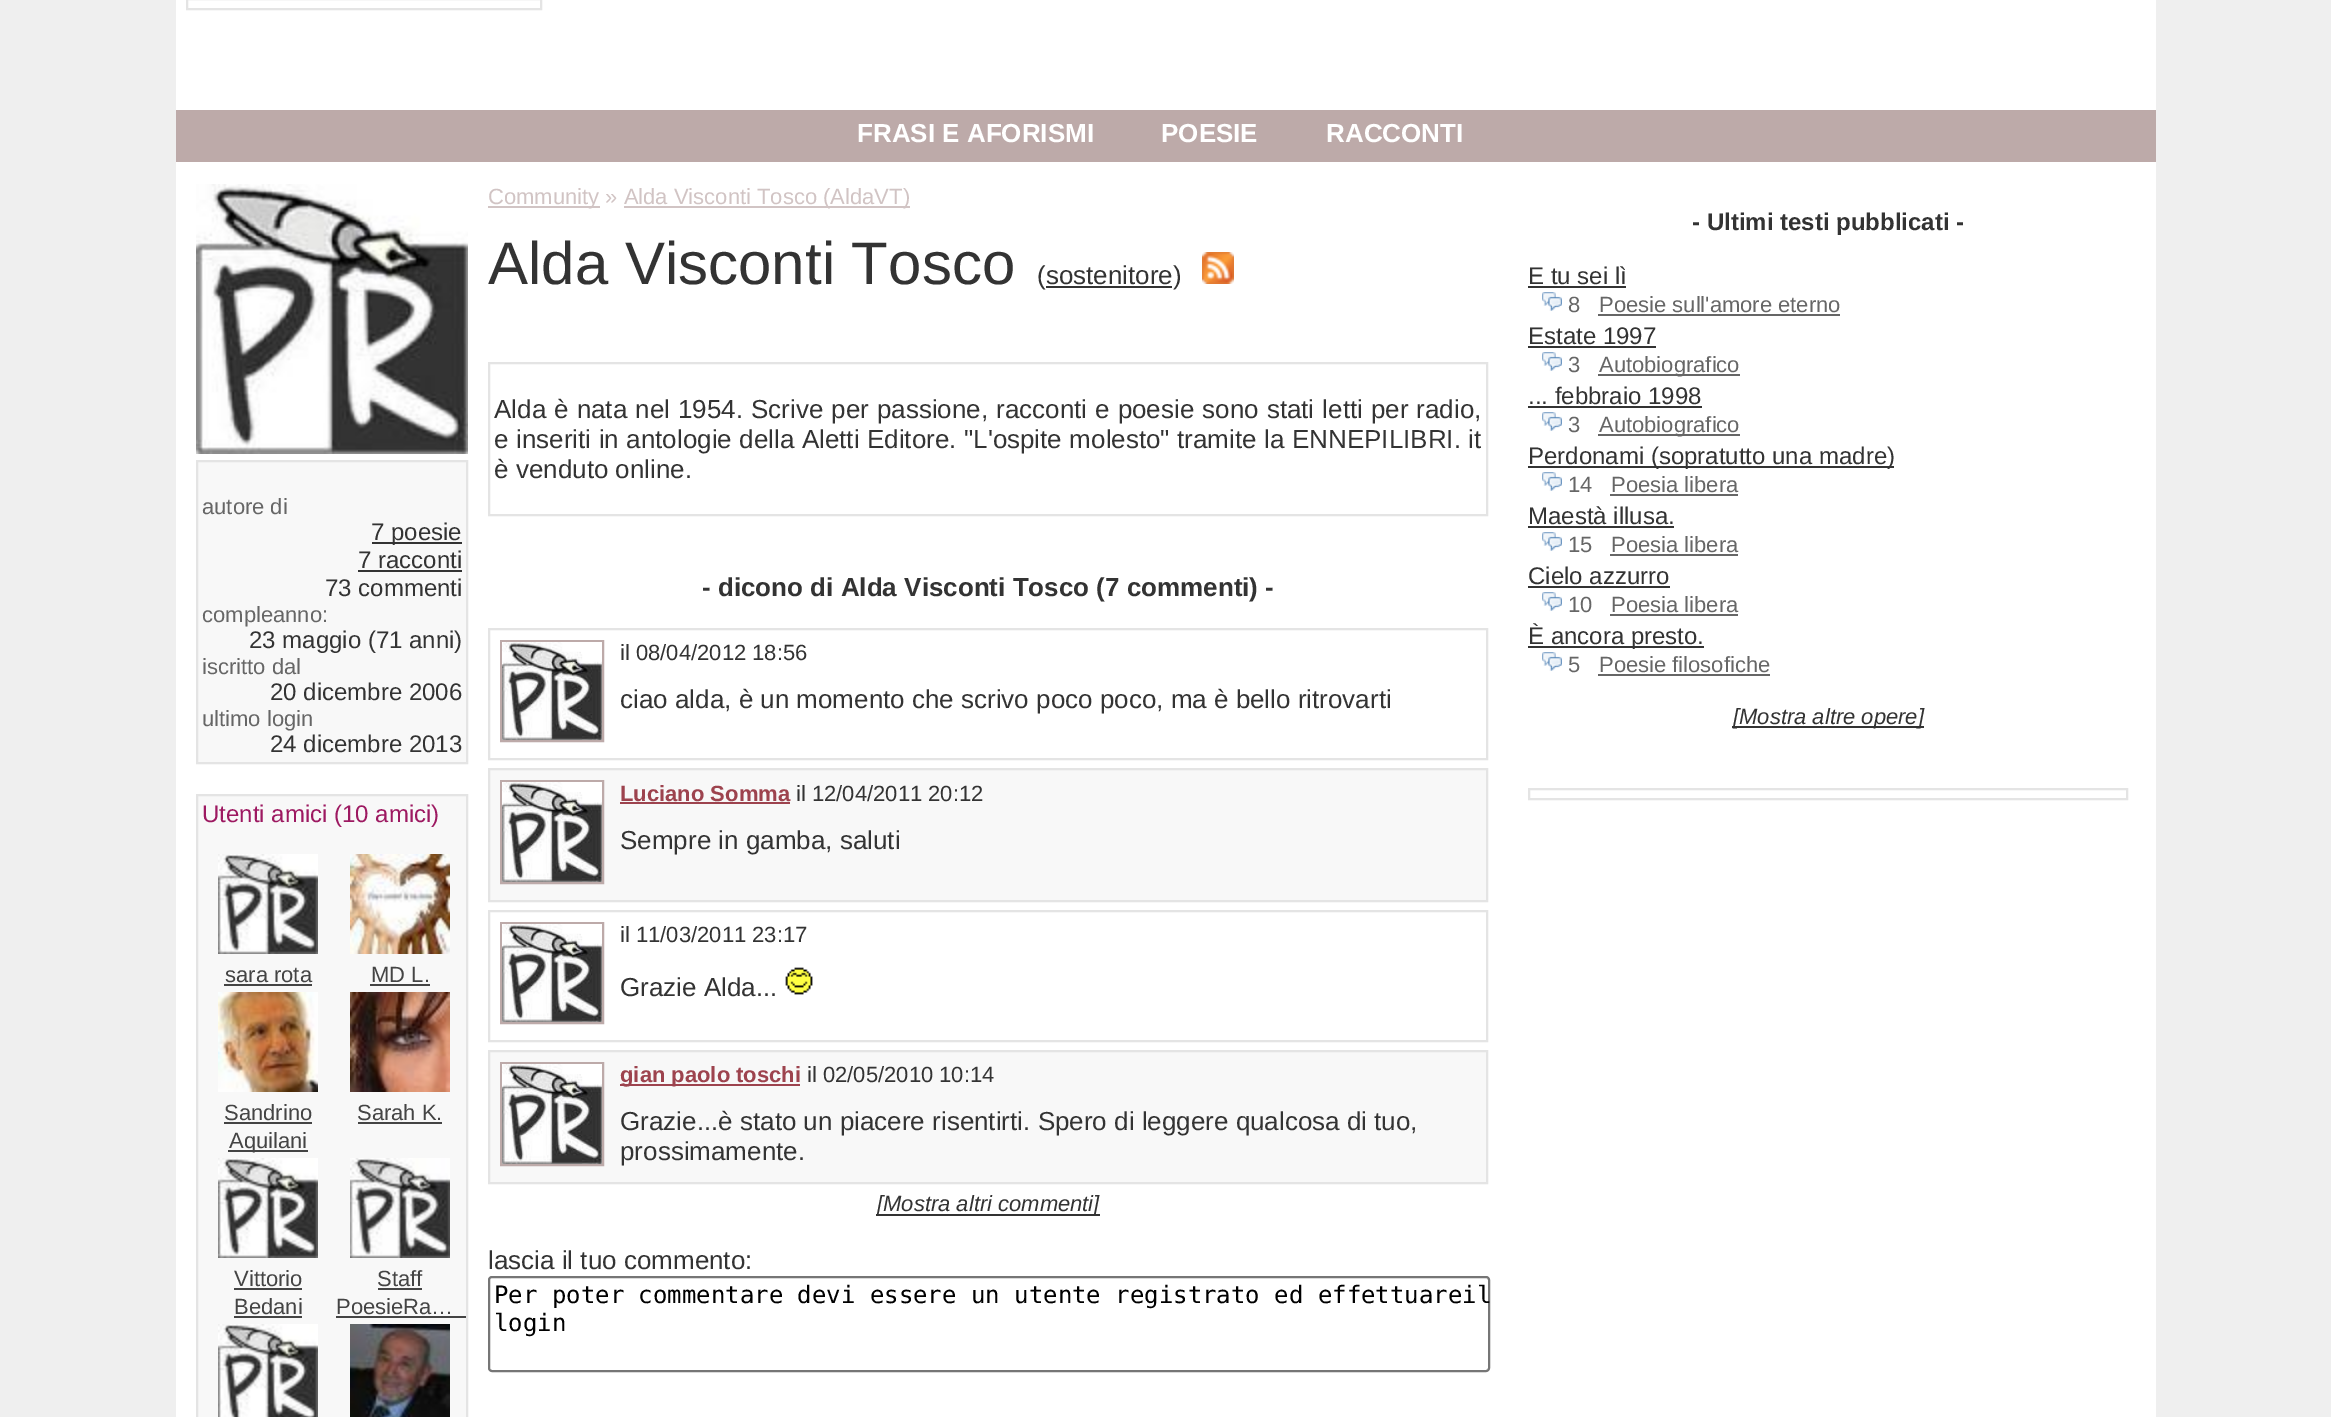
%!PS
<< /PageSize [2331 1417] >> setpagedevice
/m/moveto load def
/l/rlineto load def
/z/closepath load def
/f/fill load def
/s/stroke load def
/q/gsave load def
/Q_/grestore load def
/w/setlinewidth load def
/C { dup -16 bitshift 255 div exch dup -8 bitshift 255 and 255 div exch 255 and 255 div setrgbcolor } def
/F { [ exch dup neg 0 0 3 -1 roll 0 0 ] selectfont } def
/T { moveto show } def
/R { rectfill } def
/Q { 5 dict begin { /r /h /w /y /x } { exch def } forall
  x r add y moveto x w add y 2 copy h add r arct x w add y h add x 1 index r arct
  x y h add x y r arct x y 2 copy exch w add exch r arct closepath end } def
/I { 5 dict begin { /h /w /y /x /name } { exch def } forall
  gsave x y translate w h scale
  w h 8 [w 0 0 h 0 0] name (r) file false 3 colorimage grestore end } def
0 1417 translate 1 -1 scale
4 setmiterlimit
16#EFEFEF C
0 0 2331 1417 R
16#FFFFFF C
176 0 1980 1417 R
16#E4E4E4 C
2 w
187 -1 354 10 rectstroke
16#BDAAA9 C
176 110 1980 52 R
/LiberationSans-Bold 26 F
16#FFFFFF C
(FRASI E AFORISMI) 857 142 T
(POESIE) 1161 142 T
(RACCONTI) 1326 142 T
(1.rgb) 196 184 272 270 I
16#F8F8F8 C
197 461 m 270 0 l 0 302 l -270 0 l z q f Q_
16#E4E4E4 C
s
/LiberationSans-Regular 22 F
16#666666 C
(autore di) 202 514 T
16#333333 C
372 542 90 2 R
/LiberationSans-Regular 24 F
(7 poesie) 371 540 T
(7 racconti) 358 568 T
358 570 104 2 R
(73 commenti) 325 596 T
/LiberationSans-Regular 22 F
16#666666 C
(compleanno:) 202 622 T
/LiberationSans-Regular 24 F
16#333333 C
(23 maggio \(71 anni\)) 249 648 T
/LiberationSans-Regular 22 F
16#666666 C
(iscritto dal) 202 674 T
/LiberationSans-Regular 24 F
16#333333 C
(20 dicembre 2006) 270 700 T
/LiberationSans-Regular 22 F
16#666666 C
(ultimo login) 202 726 T
/LiberationSans-Regular 24 F
16#333333 C
(24 dicembre 2013) 270 752 T
16#F8F8F8 C
197 795 m 270 0 l 0 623 l -270 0 l z q f Q_
16#E4E4E4 C
s
16#9D1961 C
(Utenti amici \(10 amici\)) 202 822 T
(2.rgb) 218 854 100 100 I
/LiberationSans-Regular 22 F
16#444444 C
(sara rota) 225 982 T
224 984 88 2 R
(3.rgb) 350 854 100 100 I
(MD L.) 371 982 T
370 984 60 2 R
(4.rgb) 218 992 100 100 I
(Sandrino) 224 1120 T
224 1122 88 2 R
228 1150 80 2 R
(Aquilani) 229 1148 T
(5.rgb) 350 992 100 100 I
(Sarah K.) 357 1120 T
358 1122 84 2 R
(2.rgb) 218 1158 100 100 I
(Vittorio) 234 1286 T
234 1288 68 2 R
(Bedani) 234 1314 T
234 1316 68 2 R
(6.rgb) 350 1158 100 100 I
(Staff) 377 1286 T
378 1288 44 2 R
(PoesieRa…) 336 1314 T
336 1316 130 2 R
(7.rgb) 218 1324 100 93 I
(8.rgb) 350 1324 100 93 I
16#D1C4C4 C
488 206 112 2 R
(Community » Alda Visconti Tosco) 488 204 T
624 206 206 2 R
(\(AldaVT) 823 204 T
830 206 80 2 R
(\)) 903 204 T
/LiberationSans-Regular 60 F
16#333333 C
(Alda Visconti Tosco) 488 284 T
/LiberationSans-Regular 26 F
(\(sostenitore\)) 1037 284 T
(9.rgb) 1202 252 32 32 I
1046 286 126 2 R
16#E4E4E4 C
489 363 998 152 rectstroke
16#333333 C
494 418 m .8 0 32 (Alda è nata nel 1954. Scrive per passione, racconti e poesie sono stati letti per radio,) widthshow
494 448 m .25 0 32 (e inseriti in antologie della Aletti Editore. "L'ospite molesto" tramite la ENNEPILIBRI. it) widthshow
(è venduto online.) 494 478 T
/LiberationSans-Bold 26 F
(- dicono di Alda Visconti Tosco \(7 commenti\) -) 702 596 T
16#E4E4E4 C
489 629 998 130 rectstroke
16#BDAAA9 C
501 641 102 100 rectstroke
(10.rgb) 502 642 100 98 I
/LiberationSans-Regular 22 F
16#333333 C
(il 08/04/2012 18:56) 620 660 T
/LiberationSans-Regular 26 F
(ciao alda, è un momento che scrivo poco poco, ma è bello ritrovarti) 620 708 T
16#F8F8F8 C
489 769 m 998 0 l 0 132 l -998 0 l z q f Q_
16#E4E4E4 C
s
16#BDAAA9 C
501 781 102 102 rectstroke
(11.rgb) 502 782 100 100 I
/LiberationSans-Bold 22 F
16#9D434E C
(Luciano Somma) 620 801 T
620 802 170 2 R
/LiberationSans-Regular 22 F
16#333333 C
(il 12/04/2011 20:12) 796 801 T
/LiberationSans-Regular 26 F
(Sempre in gamba, saluti) 620 849 T
16#E4E4E4 C
489 911 998 130 rectstroke
16#BDAAA9 C
501 923 102 100 rectstroke
(10.rgb) 502 924 100 98 I
/LiberationSans-Regular 22 F
16#333333 C
(il 11/03/2011 23:17) 620 942 T
/LiberationSans-Regular 26 F
(Grazie Alda...) 620 996 T
(12.rgb) 785 967 28 28 I
16#F8F8F8 C
489 1051 m 998 0 l 0 132 l -998 0 l z q f Q_
16#E4E4E4 C
s
16#BDAAA9 C
501 1063 102 102 rectstroke
(11.rgb) 502 1064 100 100 I
16#9D434E C
620 1084 180 2 R
/LiberationSans-Bold 22 F
(gian paolo toschi) 620 1082 T
/LiberationSans-Regular 22 F
16#333333 C
(il 02/05/2010 10:14) 807 1082 T
/LiberationSans-Regular 26 F
(Grazie...è stato un piacere risentirti. Spero di leggere qualcosa di tuo,) 620 1130 T
(prossimamente.) 620 1160 T
876 1214 224 2 R
/LiberationSans-Italic 22 F
([Mostra altri commenti]) 877 1211 T
/LiberationSans-Regular 26 F
(lascia il tuo commento:) 488 1269 T
16#767676 C
489 1277 1000 94 3 Q s
/DejaVuSansMono-Regular 24 F
16#000000 C
(Per poter commentare devi essere un utente registrato ed effettuareil) 494 1303 T
(login) 494 1331 T
/LiberationSans-Bold 24 F
16#333333 C
(- Ultimi testi pubblicati -) 1692 230 T
/LiberationSans-Regular 24 F
(E tu sei lì) 1528 284 T
1528 286 98 2 R
(13.rgb) 1542 292 20 19 I
/LiberationSans-Regular 22 F
16#666666 C
(8) 1568 312 T
(Poesie sull'amore eterno) 1599 312 T
1598 314 242 2 R
/LiberationSans-Regular 24 F
16#333333 C
(Estate 1997) 1528 344 T
1528 346 128 2 R
(14.rgb) 1542 352 20 19 I
/LiberationSans-Regular 22 F
16#666666 C
(3) 1568 372 T
1598 374 142 2 R
(Autobiografico) 1599 372 T
/LiberationSans-Regular 24 F
16#333333 C
(... febbraio 1998) 1528 404 T
1528 406 174 2 R
(14.rgb) 1542 412 20 19 I
/LiberationSans-Regular 22 F
16#666666 C
(3) 1568 432 T
1598 434 142 2 R
(Autobiografico) 1599 432 T
16#333333 C
1528 466 366 2 R
/LiberationSans-Regular 24 F
(Perdonami \(sopratutto una madre\)) 1528 464 T
(14.rgb) 1542 472 20 19 I
/LiberationSans-Regular 22 F
16#666666 C
(14) 1568 492 T
(Poesia libera) 1611 492 T
1610 494 128 2 R
/LiberationSans-Regular 24 F
16#333333 C
(Maestà illusa.) 1528 524 T
1528 526 146 2 R
(14.rgb) 1542 532 20 19 I
/LiberationSans-Regular 22 F
16#666666 C
(15) 1568 552 T
(Poesia libera) 1611 552 T
1610 554 128 2 R
/LiberationSans-Regular 24 F
16#333333 C
(Cielo azzurro) 1528 584 T
1528 586 142 2 R
(14.rgb) 1542 592 20 19 I
/LiberationSans-Regular 22 F
16#666666 C
(10) 1568 612 T
(Poesia libera) 1611 612 T
1610 614 128 2 R
16#333333 C
1528 646 176 2 R
/LiberationSans-Regular 24 F
(È ancora presto.) 1528 644 T
(14.rgb) 1542 652 20 19 I
/LiberationSans-Regular 22 F
16#666666 C
(5) 1568 672 T
(Poesie filosofiche) 1599 672 T
1598 674 172 2 R
16#333333 C
1732 726 192 2 R
/LiberationSans-Italic 22 F
([Mostra altre opere]) 1733 724 T
16#E4E4E4 C
1529 789 598 10 rectstroke
showpage
